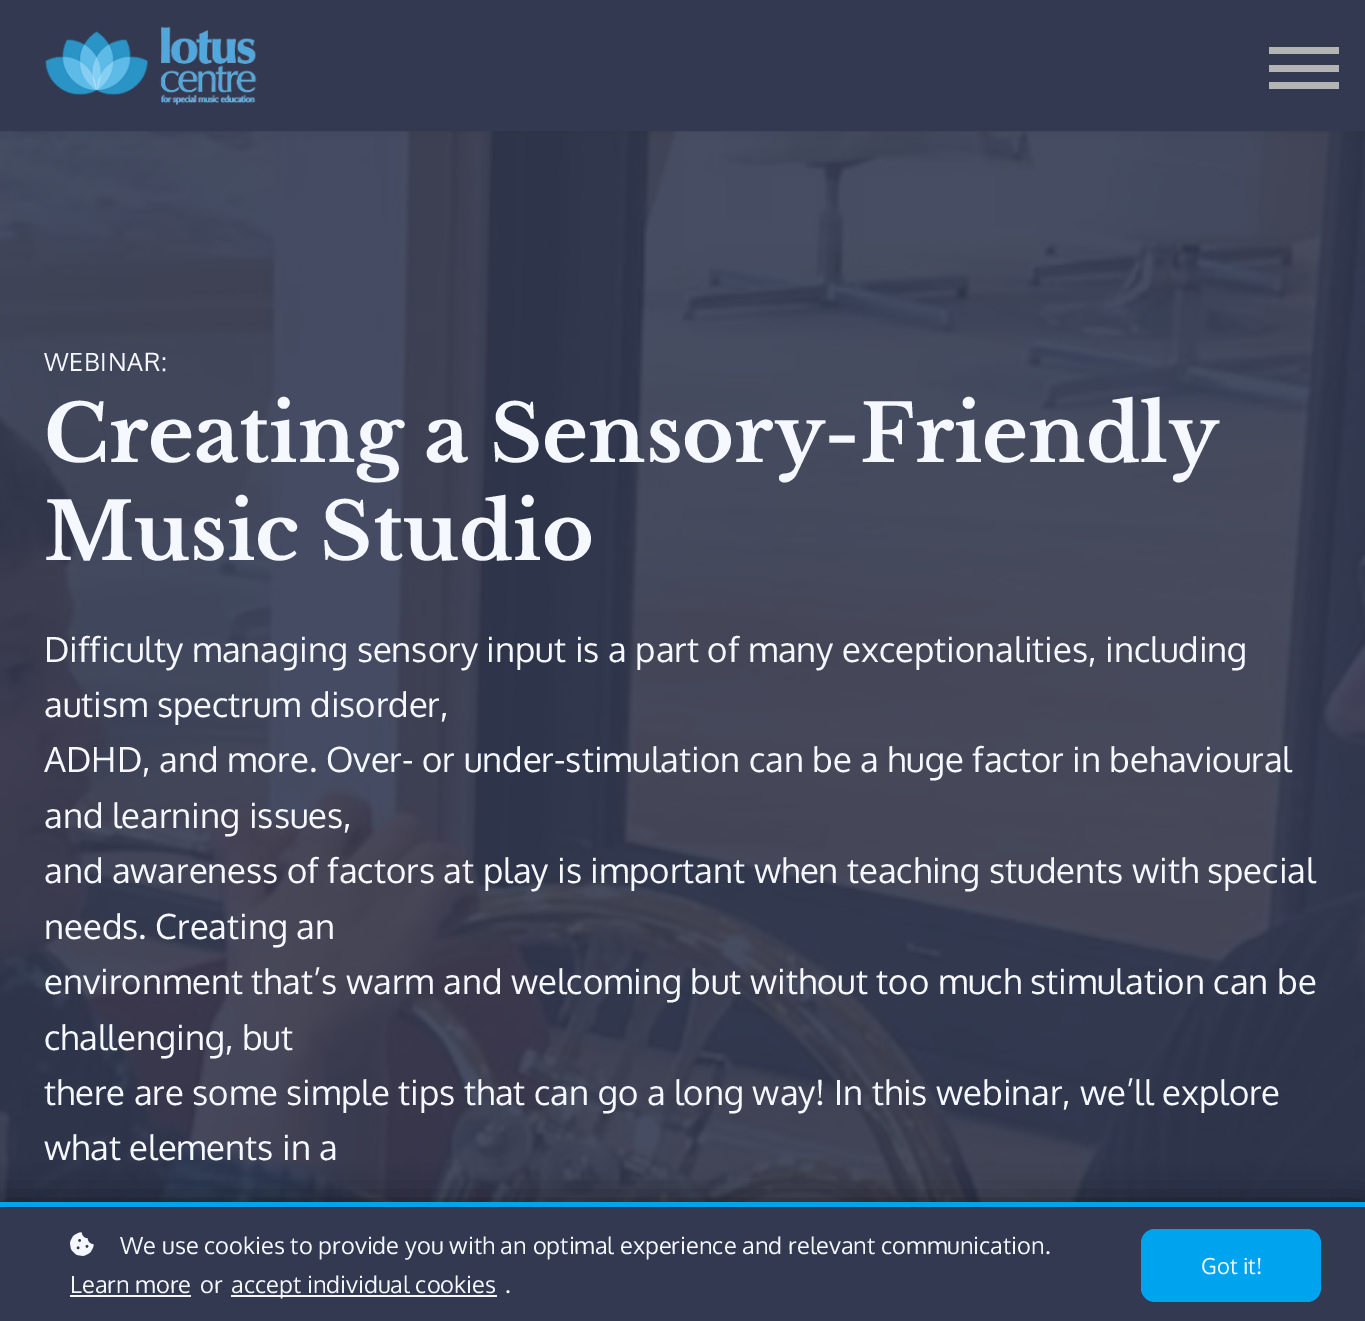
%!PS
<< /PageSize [1365 1321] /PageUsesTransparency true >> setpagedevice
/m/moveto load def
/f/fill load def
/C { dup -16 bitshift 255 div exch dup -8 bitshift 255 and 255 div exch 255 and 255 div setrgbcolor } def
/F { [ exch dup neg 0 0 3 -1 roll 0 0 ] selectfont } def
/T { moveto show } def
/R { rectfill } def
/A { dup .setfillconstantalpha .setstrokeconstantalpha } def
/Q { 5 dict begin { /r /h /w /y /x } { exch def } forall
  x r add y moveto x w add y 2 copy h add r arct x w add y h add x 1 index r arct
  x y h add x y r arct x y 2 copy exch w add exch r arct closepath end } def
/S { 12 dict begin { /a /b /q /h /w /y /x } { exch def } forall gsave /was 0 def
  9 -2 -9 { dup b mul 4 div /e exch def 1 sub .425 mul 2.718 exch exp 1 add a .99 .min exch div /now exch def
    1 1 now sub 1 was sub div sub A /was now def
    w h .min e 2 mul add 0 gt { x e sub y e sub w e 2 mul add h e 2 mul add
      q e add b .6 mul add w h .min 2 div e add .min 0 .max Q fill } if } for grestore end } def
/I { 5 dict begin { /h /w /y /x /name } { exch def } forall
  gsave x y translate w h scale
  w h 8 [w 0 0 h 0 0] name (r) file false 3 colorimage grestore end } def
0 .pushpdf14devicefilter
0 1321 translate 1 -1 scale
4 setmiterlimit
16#FFFFFF C
0 0 1365 1321 R
(2.rgb) 0 131 1365 1077 I
16#000000 C
0 0 1365 131 0 13 .05 S
16#323951 C
0 0 1365 131 R
(1.rgb) 45 26 212 79 I
16#B4B4B4 C
1269 82 70 7 R
1269 47 70 7 R
1269 65 70 7 R
/Oxygen-Regular 25 F
16#F6F8FF C
44 371 m .75 0 (WEBINAR:) ashow
/LibreBaskerville-Bold 78.75 F
(Creating a Sensory-Friendly) 44 462 T
(Music Studio) 44 560 T
/Oxygen-Regular 34.65 F
(Difficulty managing sensory input is a part of many exceptionalities, including) 44 662 T
(autism spectrum disorder,) 44 717 T
(ADHD, and more. Over- or under-stimulation can be a huge factor in behavioural) 44 772 T
(and learning issues,) 44 828 T
(and awareness of factors at play is important when teaching students with special) 44 883 T
(needs. Creating an) 44 939 T
(environment that’s warm and welcoming but without too much stimulation can be) 44 994 T
(challenging, but) 44 1050 T
(there are some simple tips that can go a long way! In this webinar, we’ll explore) 44 1105 T
(what elements in a) 44 1160 T
16#000000 C
0 1202 1365 119 0 17.5 .5 S
16#323951 C
0 1208 1365 113 R
16#00A4EE C
0 1202 1365 5 R
(3.rgb) 70 1232 24 24 I
/Oxygen-Regular 23.6 F
16#F6F8FF C
(We use cookies to provide you with an optimal experience and relevant communication.) 120 1254 T
(Learn more) 70 1293 T
70 1295 121 2 R
(or) 200 1293 T
231 1295 266 2 R
(accept individual cookies) 231 1293 T
(.) 505 1293 T
16#00A4EE C
1141 1229 180 73 14 Q f
/Oxygen-Regular 22 F
16#F6F8FF C
(Got it!) 1201 1274 T
.poppdf14devicefilter showpage
